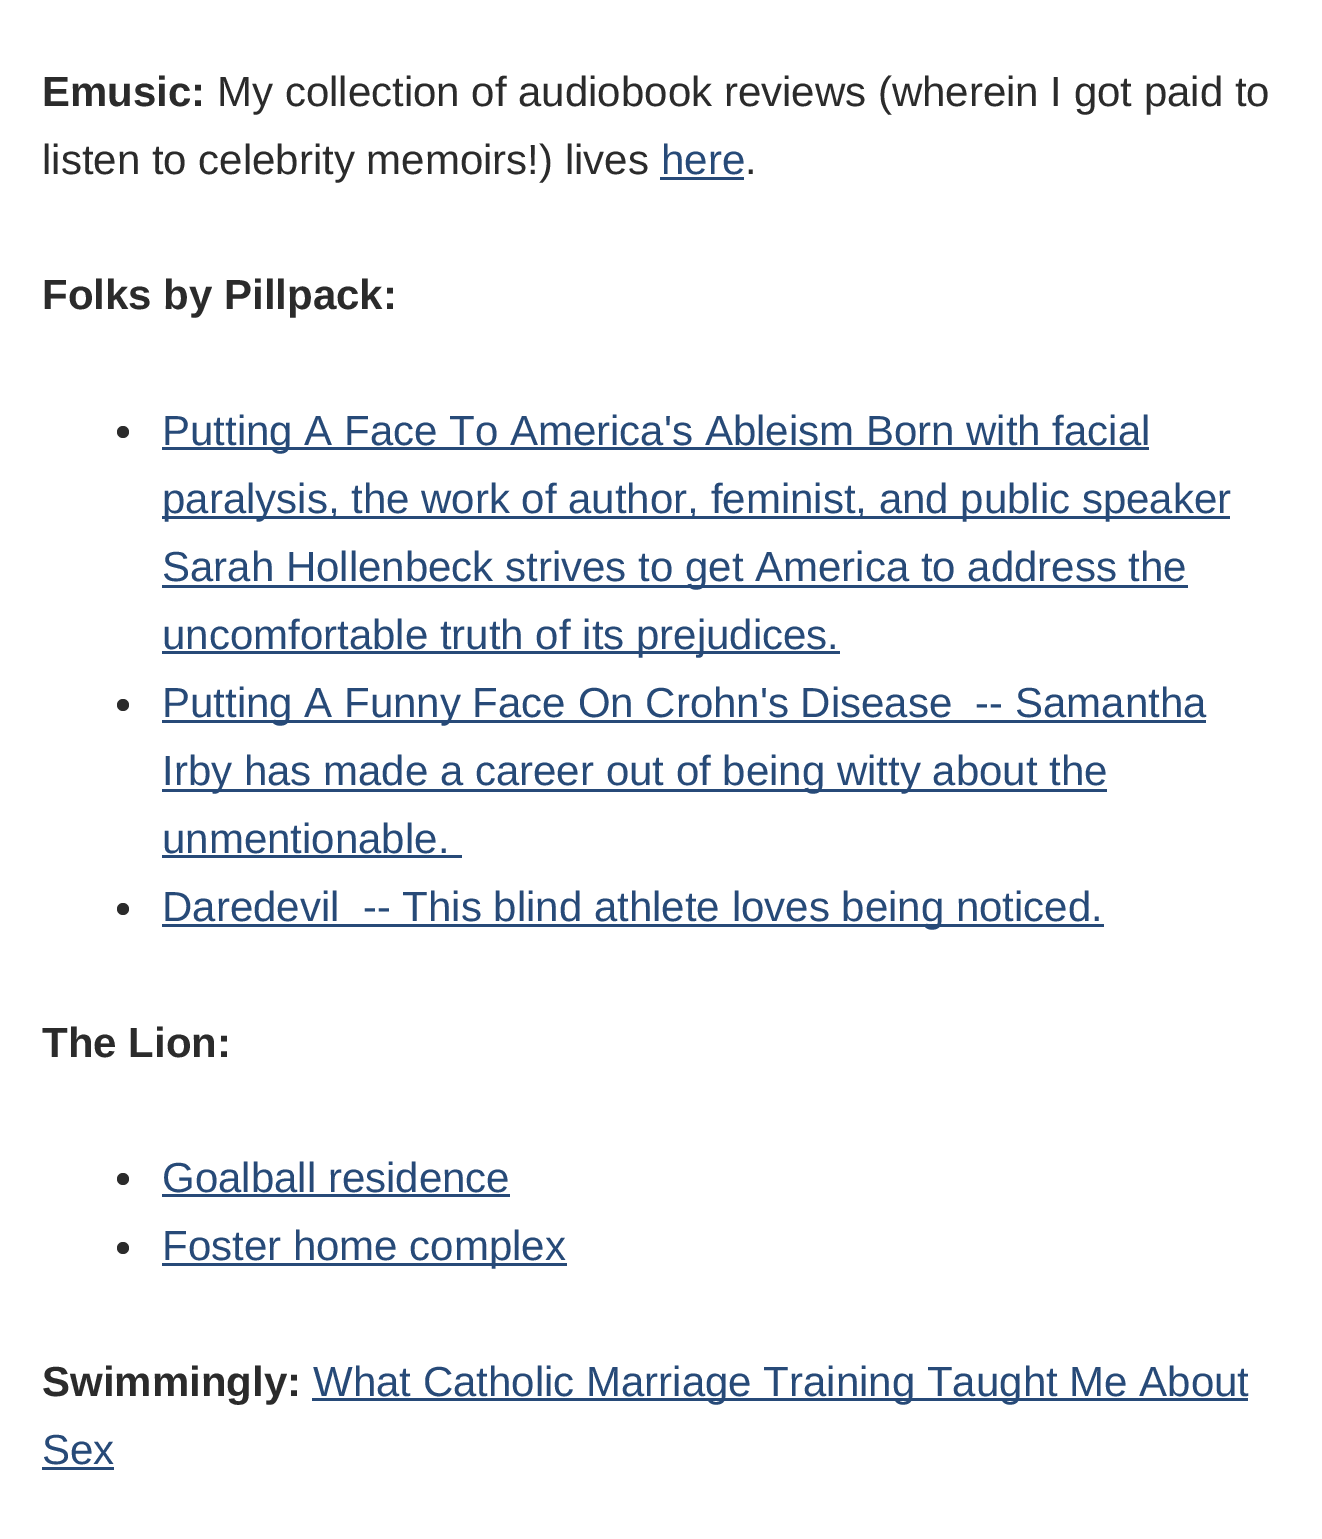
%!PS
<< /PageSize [1322 1539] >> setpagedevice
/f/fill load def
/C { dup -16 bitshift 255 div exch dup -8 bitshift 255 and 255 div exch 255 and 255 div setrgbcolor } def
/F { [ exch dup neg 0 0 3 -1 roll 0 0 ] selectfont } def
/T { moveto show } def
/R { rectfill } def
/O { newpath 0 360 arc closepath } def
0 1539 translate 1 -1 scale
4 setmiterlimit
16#FFFFFF C
0 0 1322 1539 R
/LiberationSans-Bold 42 F
16#2B2B2B C
(Emusic:) 42 106 T
/LiberationSans-Regular 42 F
(My collection of audiobook reviews \(wherein I got paid to) 217 106 T
(listen to celebrity memoirs!\) lives) 42 174 T
16#274A78 C
(here) 661 174 T
660 177 84 3 R
16#2B2B2B C
(.) 745 174 T
/LiberationSans-Bold 42 F
(Folks by Pillpack:) 42 309 T
123 432 6 O f
16#274A78 C
162 447 987 3 R
/LiberationSans-Regular 42 F
(Putting A Face To America's Ableism Born with facial) 162 445 T
162 516 1068 3 R
(paralysis, the work of author, feminist, and public speaker) 162 513 T
162 585 1026 3 R
(Sarah Hollenbeck strives to get America to address the) 162 581 T
162 651 678 3 R
(uncomfortable truth of its prejudices.) 162 649 T
16#2B2B2B C
123 705 6 O f
16#274A78 C
162 720 1044 3 R
(Putting A Funny Face On Crohn's Disease  -- Samantha) 162 717 T
162 789 945 3 R
(Irby has made a career out of being witty about the) 162 785 T
(unmentionable.) 162 853 T
162 855 300 3 R
16#2B2B2B C
123 909 6 O f
16#274A78 C
162 924 942 3 R
(Daredevil  -- This blind athlete loves being noticed.) 162 921 T
/LiberationSans-Bold 42 F
16#2B2B2B C
(The Lion:) 42 1057 T
123 1179 6 O f
/LiberationSans-Regular 42 F
16#274A78 C
(Goalball residence) 162 1192 T
162 1194 348 3 R
16#2B2B2B C
123 1248 6 O f
16#274A78 C
162 1263 405 3 R
(Foster home complex) 162 1260 T
/LiberationSans-Bold 42 F
16#2B2B2B C
(Swimmingly:) 42 1396 T
16#274A78 C
312 1398 936 3 R
/LiberationSans-Regular 42 F
(What Catholic Marriage Training Taught Me About) 313 1396 T
(Sex) 42 1464 T
42 1467 72 3 R
showpage
